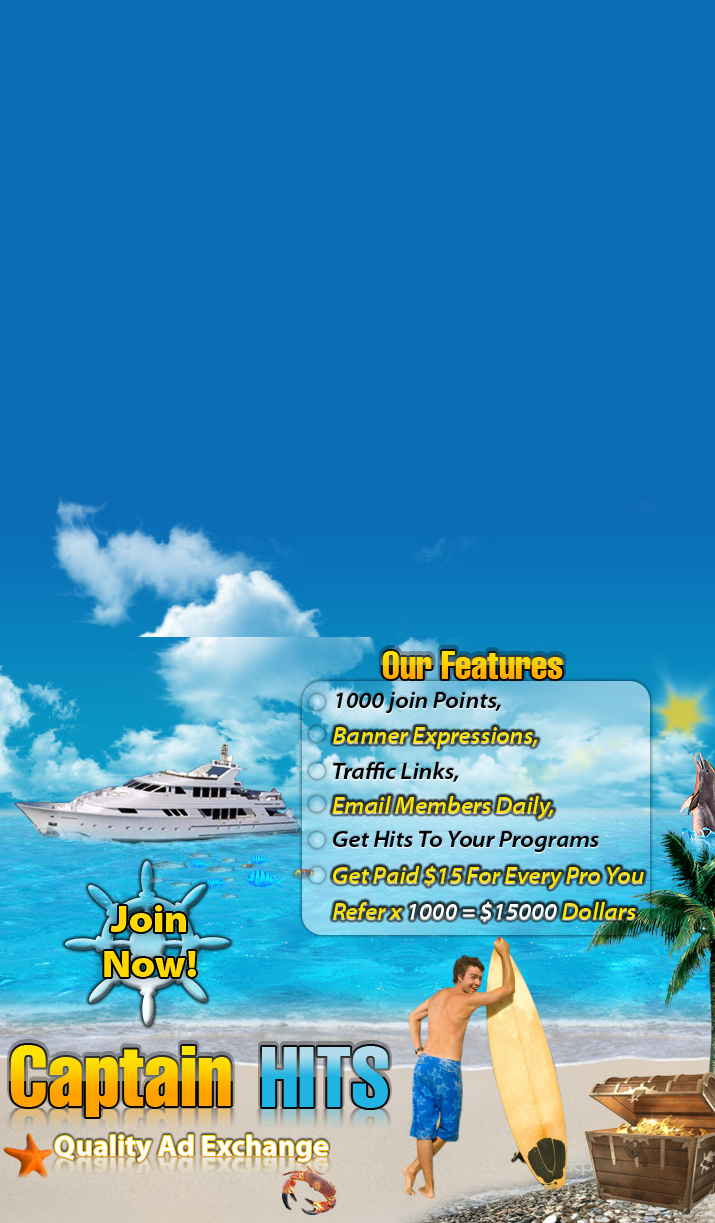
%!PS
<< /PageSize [715 1223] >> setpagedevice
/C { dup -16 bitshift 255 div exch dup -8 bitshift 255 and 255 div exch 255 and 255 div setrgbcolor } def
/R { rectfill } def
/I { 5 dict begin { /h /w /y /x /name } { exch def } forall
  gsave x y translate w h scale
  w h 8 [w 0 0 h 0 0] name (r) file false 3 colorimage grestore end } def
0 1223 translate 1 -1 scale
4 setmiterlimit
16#0B6BB5 C
0 0 715 1223 R
(1.rgb) 0 495 715 142 I
(2.rgb) 0 637 715 219 I
(3.rgb) 0 856 61 175 I
(4.rgb) 61 856 175 175 I
(5.rgb) 236 856 479 175 I
(6.rgb) 0 1031 583 192 I
(7.rgb) 583 1031 132 192 I
showpage
